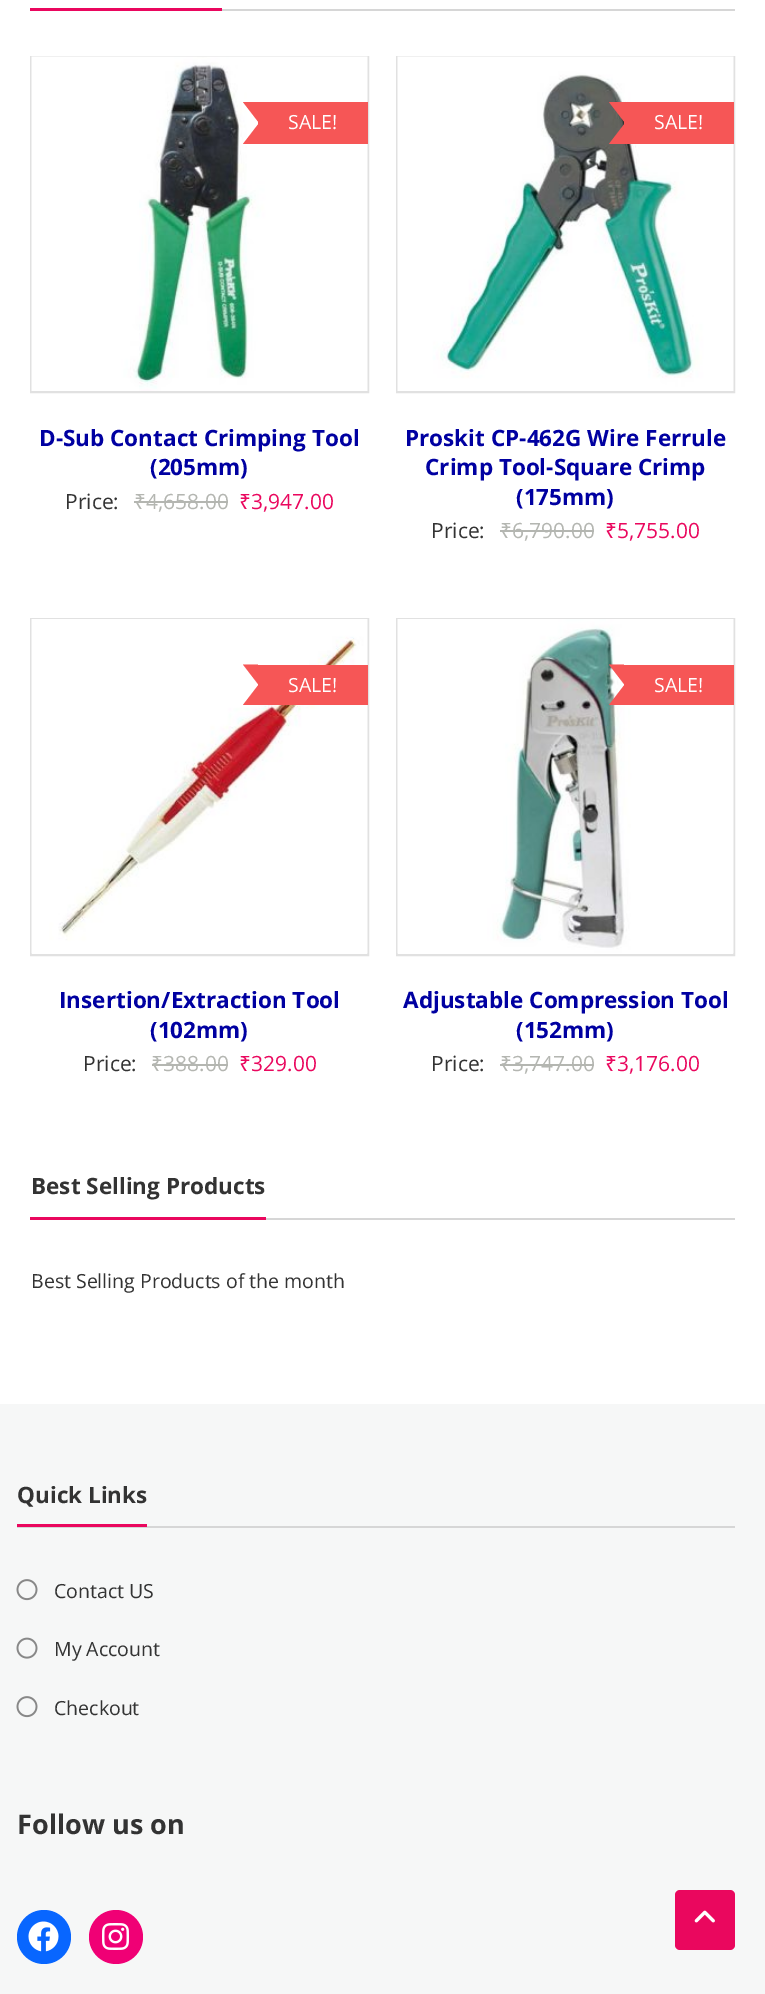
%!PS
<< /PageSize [765 1994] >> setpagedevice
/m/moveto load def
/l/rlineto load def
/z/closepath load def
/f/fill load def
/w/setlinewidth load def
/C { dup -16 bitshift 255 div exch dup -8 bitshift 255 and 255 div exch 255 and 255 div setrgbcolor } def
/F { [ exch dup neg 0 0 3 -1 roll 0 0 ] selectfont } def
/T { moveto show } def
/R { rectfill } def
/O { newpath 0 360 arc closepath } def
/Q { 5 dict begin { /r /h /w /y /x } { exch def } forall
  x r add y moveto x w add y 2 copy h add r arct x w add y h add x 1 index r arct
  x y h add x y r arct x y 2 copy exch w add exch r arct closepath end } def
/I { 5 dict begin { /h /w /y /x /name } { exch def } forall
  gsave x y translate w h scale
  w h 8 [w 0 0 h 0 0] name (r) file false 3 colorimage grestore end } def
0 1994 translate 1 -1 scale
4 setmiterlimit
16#FFFFFF C
0 0 765 1994 R
16#D6D6D6 C
222 9 513 2 R
16#EA075E C
30 8 192 3 R
16#E1E1E1 C
2 w
31 57 337 335 rectstroke
(1.rgb) 31 56 337 335 I
16#F65656 C
258 102 110 42 R
258 102 m 0 19.5 l -15 -19.5 l z 258 124.5 m 0 19.5 l -15 0 l z f
/OpenSans-Regular 19.5 F
16#FFFFFF C
(SALE!) 288 129 T
/OpenSans-Bold 22.5 F
16#0000A1 C
(D-Sub Contact Crimping Tool) 39 446 T
(\(205mm\)) 150 475 T
/OpenSans-Regular 21 F
16#333333 C
(Price:) 65 509 T
/NotoSans-Regular 21 F
16#B4B6B1 C
(₹) 134 509 T
134 501 12 2 R
/OpenSans-Regular 21 F
(4,658.00) 146 509 T
146 501 82 2 R
/NotoSans-Regular 21 F
16#EA075E C
(₹) 239 509 T
/OpenSans-Regular 21 F
(3,947.00) 251 509 T
16#E1E1E1 C
397 57 337 335 rectstroke
(2.rgb) 397 56 337 335 I
16#F65656 C
624 102 110 42 R
624 102 m 0 19.5 l -15 -19.5 l z 624 124.5 m 0 19.5 l -15 0 l z f
/OpenSans-Regular 19.5 F
16#FFFFFF C
(SALE!) 654 129 T
/OpenSans-Bold 22.5 F
16#0000A1 C
(Proskit CP-462G Wire Ferrule) 405 446 T
(Crimp Tool-Square Crimp) 425 475 T
(\(175mm\)) 516 505 T
/OpenSans-Regular 21 F
16#333333 C
(Price:) 431 538 T
/NotoSans-Regular 21 F
16#B4B6B1 C
(₹) 500 538 T
500 530 12 2 R
/OpenSans-Regular 21 F
(6,790.00) 512 538 T
512 530 82 2 R
/NotoSans-Regular 21 F
16#EA075E C
(₹) 605 538 T
/OpenSans-Regular 21 F
(5,755.00) 617 538 T
16#E1E1E1 C
31 619 337 336 rectstroke
(3.rgb) 31 619 337 335 I
16#F65656 C
258 665 110 40 R
258 664.5 m 0 19.5 l -15 -19.5 l z 258 685.5 m 0 19.5 l -15 0 l z f
/OpenSans-Regular 19.5 F
16#FFFFFF C
(SALE!) 288 692 T
/OpenSans-Bold 22.5 F
16#0000A1 C
(Insertion/Extraction Tool) 59 1008 T
(\(102mm\)) 150 1038 T
/OpenSans-Regular 21 F
16#333333 C
(Price:) 83 1071 T
/NotoSans-Regular 21 F
16#B4B6B1 C
(₹) 151 1071 T
152 1064 12 2 R
/OpenSans-Regular 21 F
(388.00) 163 1071 T
164 1064 64 2 R
/NotoSans-Regular 21 F
16#EA075E C
(₹) 239 1071 T
/OpenSans-Regular 21 F
(329.00) 251 1071 T
16#E1E1E1 C
397 619 337 336 rectstroke
(4.rgb) 397 619 337 335 I
16#F65656 C
624 665 110 40 R
624 664.5 m 0 19.5 l -15 -19.5 l z 624 685.5 m 0 19.5 l -15 0 l z f
/OpenSans-Regular 19.5 F
16#FFFFFF C
(SALE!) 654 692 T
/OpenSans-Bold 22.5 F
16#0000A1 C
(Adjustable Compression Tool) 403 1008 T
(\(152mm\)) 516 1038 T
/OpenSans-Regular 21 F
16#333333 C
(Price:) 431 1071 T
/NotoSans-Regular 21 F
16#B4B6B1 C
(₹) 500 1071 T
/OpenSans-Regular 21 F
(3,747.00) 512 1071 T
500 1064 12 2 R
512 1064 82 2 R
/NotoSans-Regular 21 F
16#EA075E C
(₹) 605 1071 T
/OpenSans-Regular 21 F
(3,176.00) 617 1071 T
16#D6D6D6 C
266 1218 469 2 R
16#EA075E C
30 1217 236 3 R
/OpenSans-Bold 22.5 F
16#333333 C
(Best Selling Products) 31 1194 T
/OpenSans-Regular 19.5 F
(Best Selling Products of the month) 31 1288 T
16#F6F7F7 C
0 1404 765 590 R
16#D6D6D6 C
17 1526 718 2 R
16#EA075E C
17 1524 130 3 R
/OpenSans-Bold 22.5 F
16#333333 C
(Quick Links) 17 1503 T
(5.rgb) 16 1579 22 22 I
/OpenSans-Regular 19.5 F
(Contact US) 54 1598 T
(6.rgb) 16 1637 22 22 I
(My Account) 54 1656 T
(5.rgb) 16 1696 22 22 I
(Checkout) 54 1715 T
/OpenSans-Bold 27 F
(Follow us on) 17 1834 T
16#0866FF C
44 1937 27 O f
(7.rgb) 28 1921 31 31 I
16#F00075 C
116 1937 27 O f
(8.rgb) 102 1923 27 27 I
16#EA075E C
675 1890 60 60 5 Q f
(9.rgb) 694 1910 21 13 I
showpage
